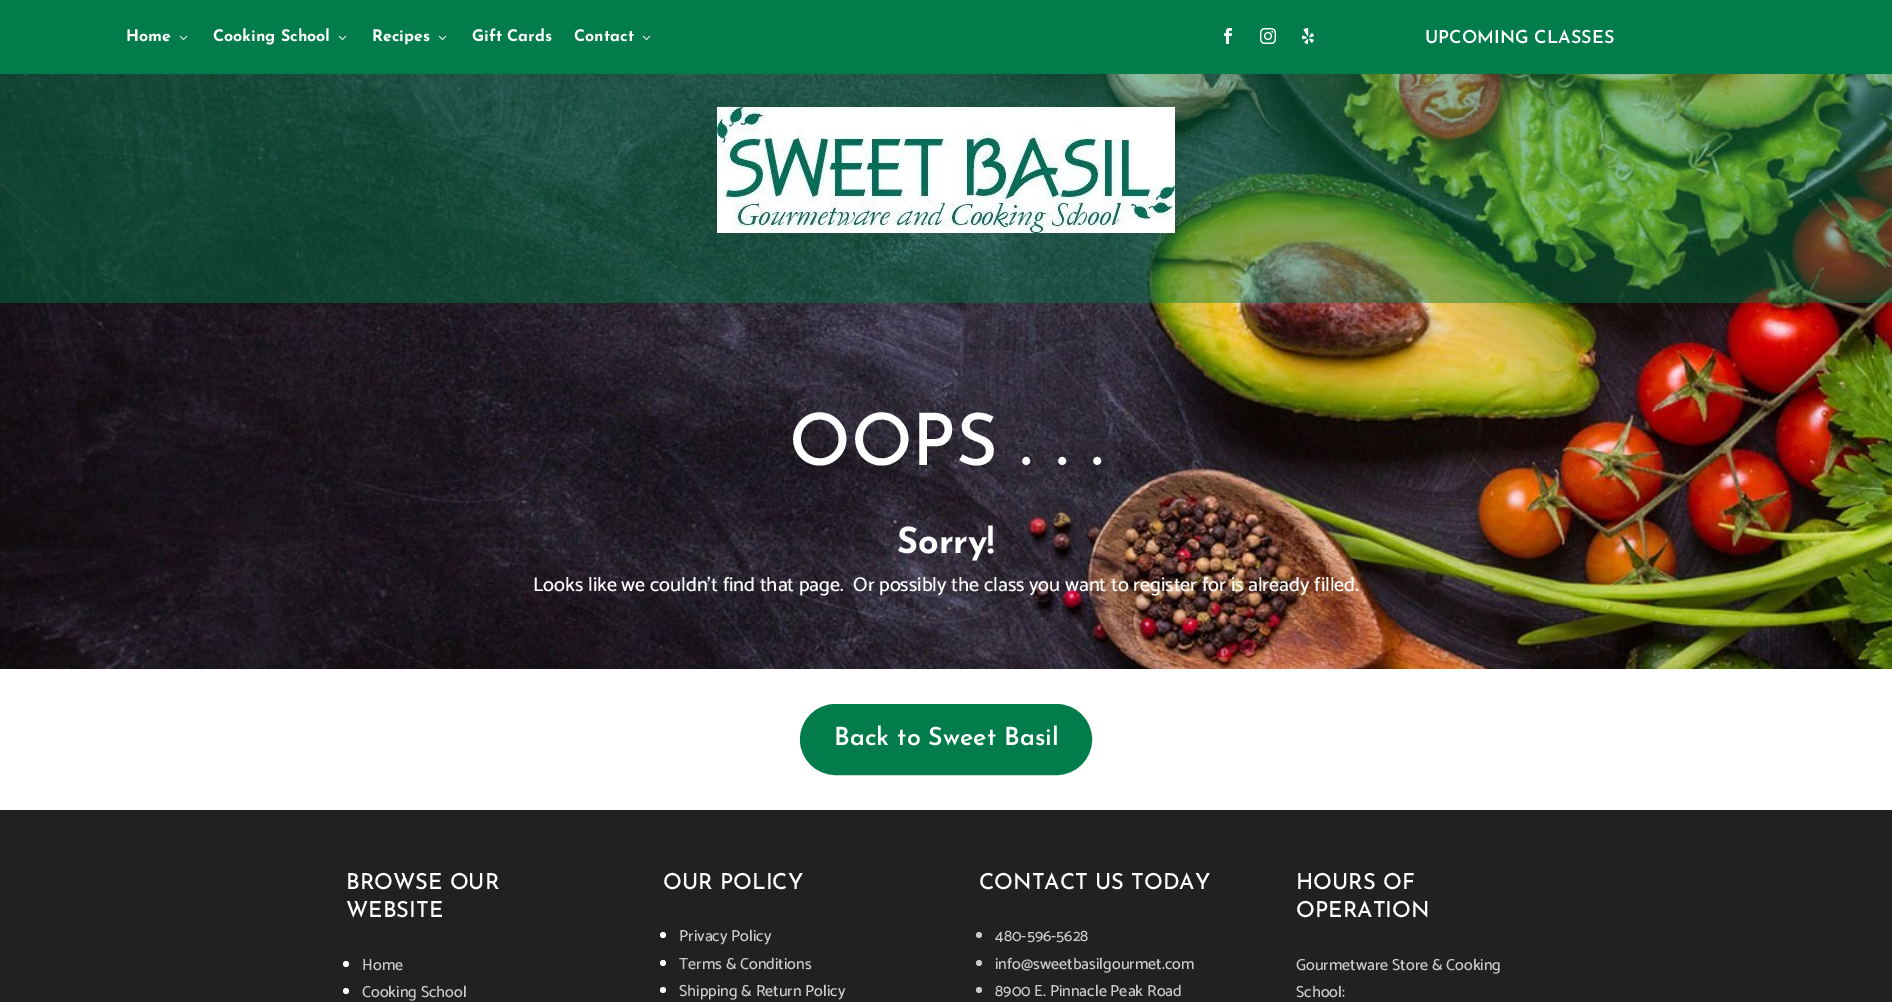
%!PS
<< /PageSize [1892 1002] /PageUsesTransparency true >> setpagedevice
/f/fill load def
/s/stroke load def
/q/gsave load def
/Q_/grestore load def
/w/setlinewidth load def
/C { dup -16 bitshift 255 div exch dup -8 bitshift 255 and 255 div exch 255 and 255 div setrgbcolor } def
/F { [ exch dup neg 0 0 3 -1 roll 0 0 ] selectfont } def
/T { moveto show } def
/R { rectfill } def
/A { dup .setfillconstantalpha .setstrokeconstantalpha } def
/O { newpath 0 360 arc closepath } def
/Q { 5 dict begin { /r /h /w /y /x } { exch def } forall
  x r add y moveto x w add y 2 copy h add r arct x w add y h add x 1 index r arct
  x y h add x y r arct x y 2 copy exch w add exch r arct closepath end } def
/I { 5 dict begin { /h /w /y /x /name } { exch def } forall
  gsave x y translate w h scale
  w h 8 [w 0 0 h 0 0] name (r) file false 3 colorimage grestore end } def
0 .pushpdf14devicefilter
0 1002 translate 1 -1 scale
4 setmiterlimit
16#FFFFFF C
0 0 1892 1002 R
16#017C4A C
0 0 1892 74 R
/JosefinSans-Bold 16 F
16#FFFFFF C
(Home) 126 41 T
(1.rgb) 179 35 9 5 I
(Cooking School) 213 41 T
(1.rgb) 338 35 9 5 I
(Recipes) 372 41 T
(1.rgb) 438 35 9 5 I
(Gift Cards) 472 41 T
(Contact) 574 41 T
(1.rgb) 642 35 9 5 I
(2.rgb) 1224 28 8 16 I
(3.rgb) 1260 28 16 16 I
(4.rgb) 1302 28 12 16 I
/JosefinSans-SemiBold 18 F
(UPCOMING CLASSES) 1425 43 T
(5.rgb) 0 74 1892 595 I
0.43 A
16#017C4A C
0 74 1892 229 R
1 A
(6.rgb) 717 107 458 126 I
/JosefinSans-Medium 72 F
16#FFFFFF C
(OOPS . . .) 789 465 T
/JosefinSans-Bold 36 F
(Sorry!) 897 553 T
/Catamaran-Medium 20 F
(Looks like we couldn’t find that page.  Or possibly the class you want to register for is already filled.) 533 591 T
16#017C4A C
802 706 288 67 33.5 Q q f Q_
4 w
s
/JosefinSans-SemiBold 25 F
16#FFFFFF C
(Back to Sweet Basil) 834 745 T
16#222121 C
0 810 1892 192 R
/JosefinSans-Medium 22 F
16#FFFFFF C
(BROWSE OUR) 346 889 T
(WEBSITE) 346 917 T
346 964 3 O f
/Catamaran-Medium 16 F
16#CBCBCB C
(Home) 362 970 T
16#FFFFFF C
346 991 3 O f
16#CBCBCB C
(Cooking School) 362 997 T
/JosefinSans-Medium 22 F
16#FFFFFF C
(OUR POLICY) 663 889 T
663 935 3 O f
/Catamaran-Medium 16 F
16#CBCBCB C
(Privacy Policy) 679 941 T
16#FFFFFF C
663 963 3 O f
16#CBCBCB C
(Terms & Conditions) 679 969 T
16#FFFFFF C
663 990 3 O f
16#CBCBCB C
(Shipping & Return Policy) 679 996 T
/JosefinSans-Medium 22 F
16#FFFFFF C
(CONTACT US TODAY) 979 889 T
16#CBCBCB C
979 935 3 O f
/Catamaran-Medium 16 F
(480-596-5628) 995 941 T
979 963 3 O f
(info@sweetbasilgourmet.com) 995 969 T
979 990 3 O f
(8900 E. Pinnacle Peak Road) 995 996 T
/JosefinSans-Medium 22 F
16#FFFFFF C
(HOURS OF) 1296 889 T
(OPERATION) 1296 917 T
/Catamaran-Medium 16 F
16#CBCBCB C
(Gourmetware Store & Cooking) 1296 970 T
(School:) 1296 997 T
.poppdf14devicefilter showpage
